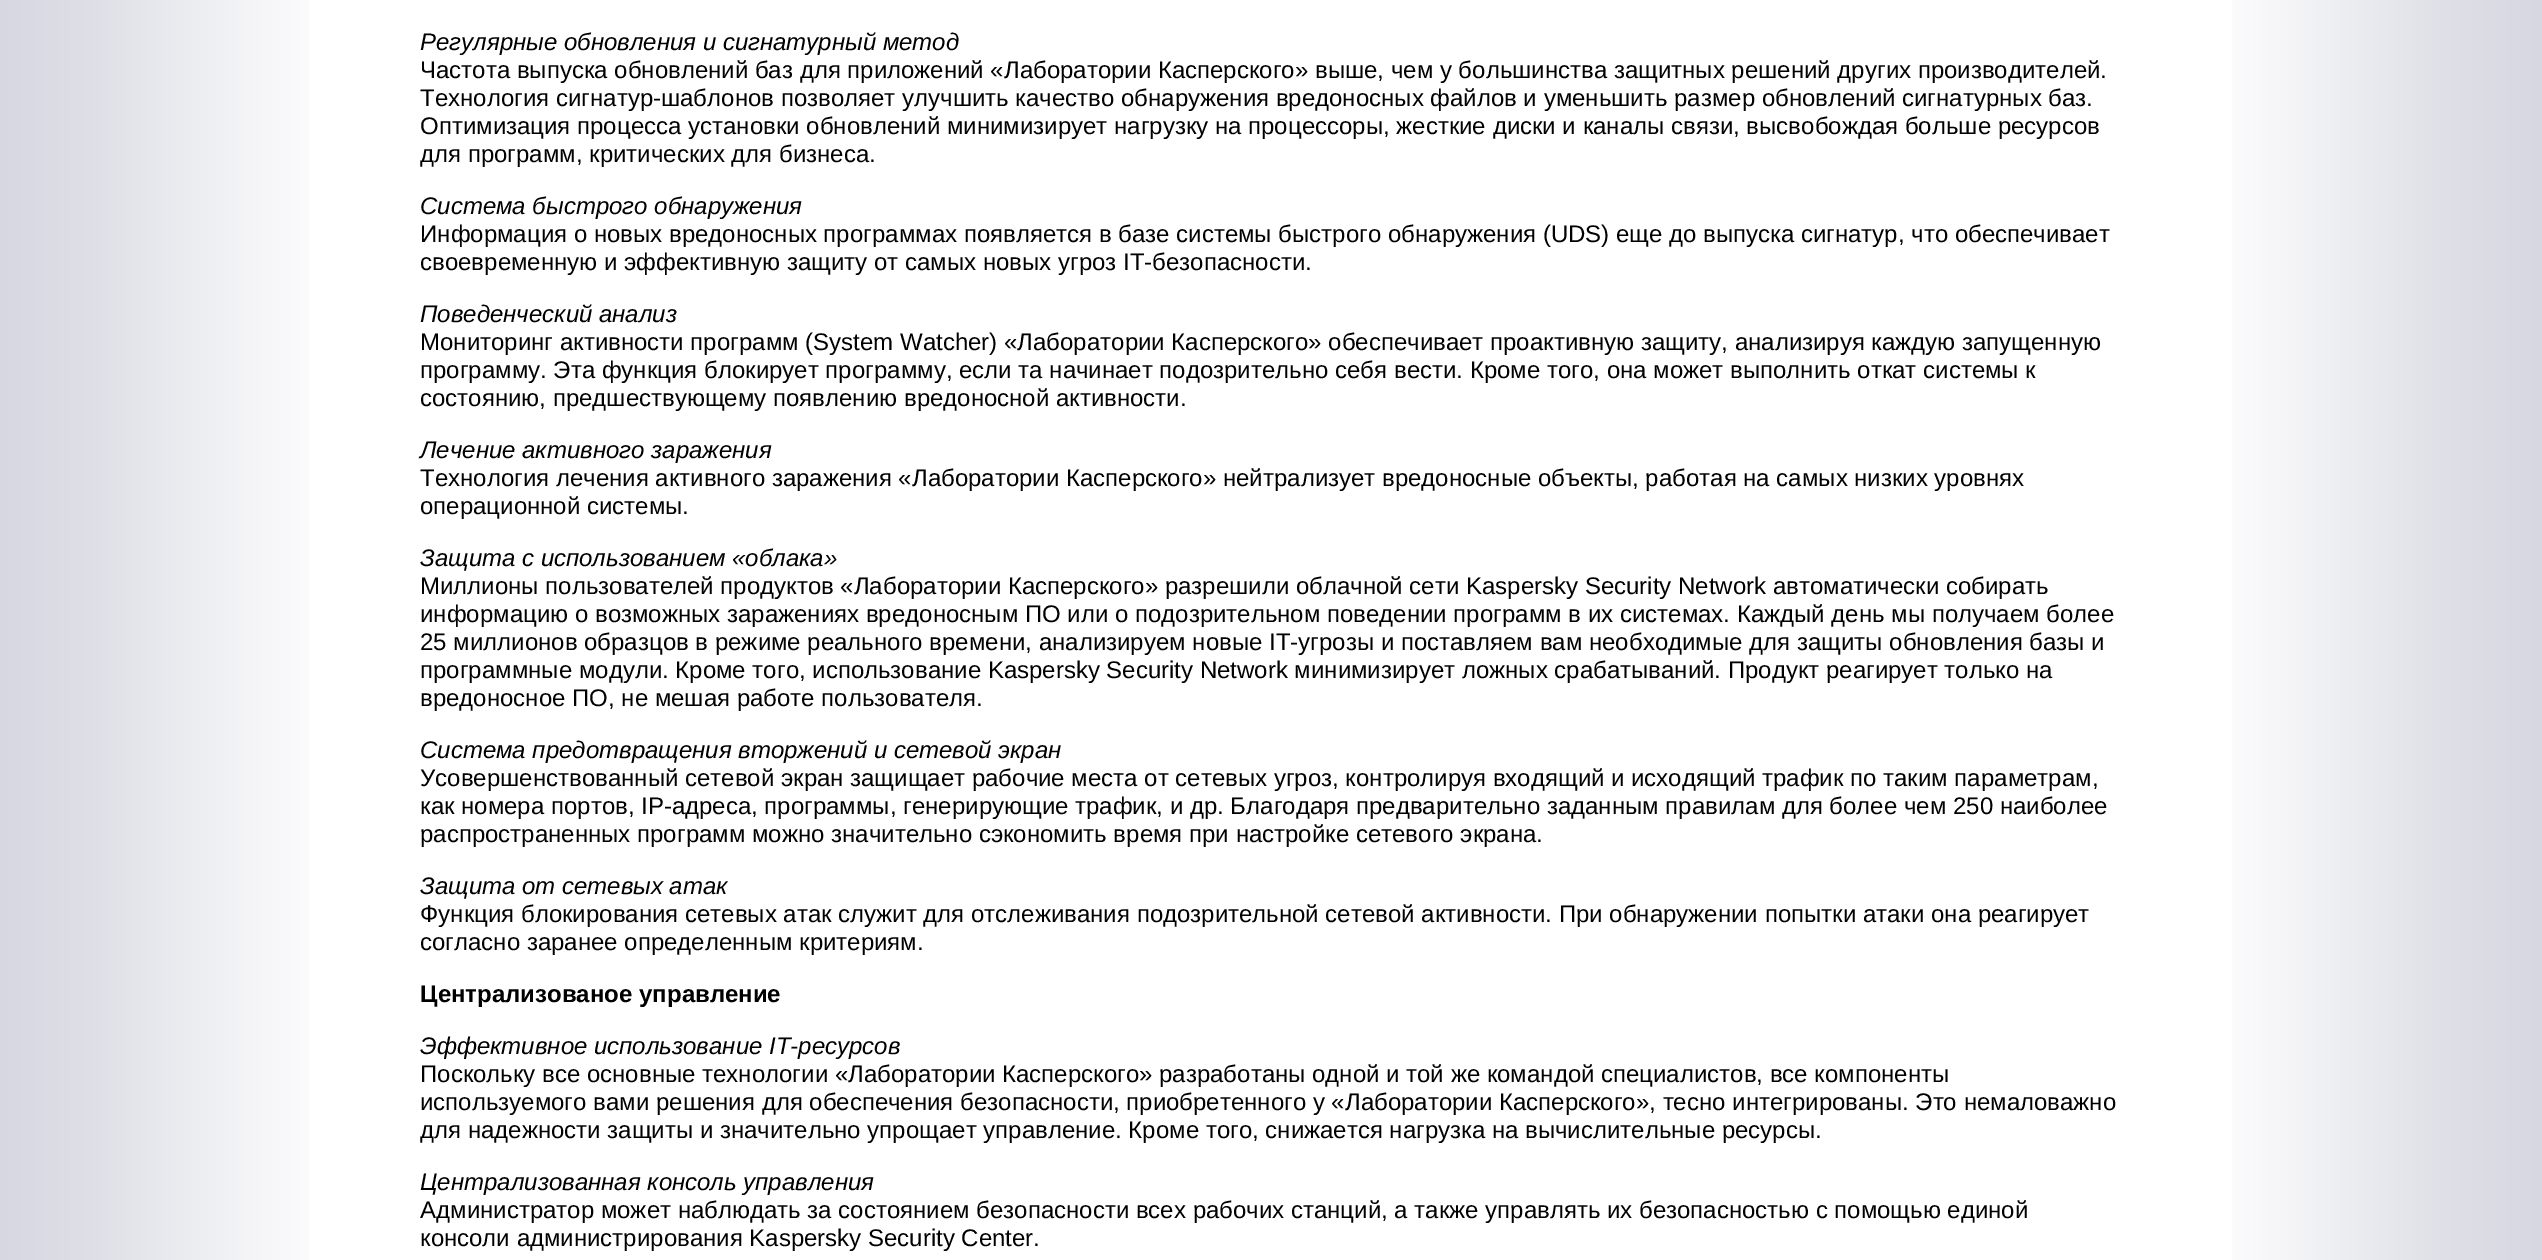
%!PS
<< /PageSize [2542 1260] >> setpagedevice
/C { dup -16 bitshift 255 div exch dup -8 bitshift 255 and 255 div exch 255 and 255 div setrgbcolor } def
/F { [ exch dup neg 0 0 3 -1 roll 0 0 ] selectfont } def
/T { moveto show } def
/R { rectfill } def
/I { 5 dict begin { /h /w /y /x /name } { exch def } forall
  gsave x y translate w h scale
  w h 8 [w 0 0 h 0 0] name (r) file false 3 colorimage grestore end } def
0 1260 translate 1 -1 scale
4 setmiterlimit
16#FFFFFF C
0 0 2542 1260 R
(1.rgb) 0 0 310 1260 I
(2.rgb) 2232 0 310 1260 I
/LiberationSans-Italic 24 F
16#000000 C
(Регулярные обновления и сигнатурный метод) 420 50 T
/LiberationSans-Regular 24 F
(Частота выпуска обновлений баз для приложений «Лаборатории Касперского» выше, чем у большинства защитных решений других производителей.) 420 78 T
(Технология сигнатур-шаблонов позволяет улучшить качество обнаружения вредоносных файлов и уменьшить размер обновлений сигнатурных баз.) 420 106 T
(Оптимизация процесса установки обновлений минимизирует нагрузку на процессоры, жесткие диски и каналы связи, высвобождая больше ресурсов) 420 134 T
(для программ, критических для бизнеса.) 420 162 T
/LiberationSans-Italic 24 F
(Система быстрого обнаружения) 420 214 T
/LiberationSans-Regular 24 F
(Информация о новых вредоносных программах появляется в базе системы быстрого обнаружения \(UDS\) еще до выпуска сигнатур, что обеспечивает) 420 242 T
(своевременную и эффективную защиту от самых новых угроз IT-безопасности.) 420 270 T
/LiberationSans-Italic 24 F
(Поведенческий анализ) 420 322 T
/LiberationSans-Regular 24 F
(Мониторинг активности программ \(System Watcher\) «Лаборатории Касперского» обеспечивает проактивную защиту, анализируя каждую запущенную) 420 350 T
(программу. Эта функция блокирует программу, если та начинает подозрительно себя вести. Кроме того, она может выполнить откат системы к) 420 378 T
(состоянию, предшествующему появлению вредоносной активности.) 420 406 T
/LiberationSans-Italic 24 F
(Лечение активного заражения) 420 458 T
/LiberationSans-Regular 24 F
(Технология лечения активного заражения «Лаборатории Касперского» нейтрализует вредоносные объекты, работая на самых низких уровнях) 420 486 T
(операционной системы.) 420 514 T
/LiberationSans-Italic 24 F
(Защита с использованием «облака») 420 566 T
/LiberationSans-Regular 24 F
(Миллионы пользователей продуктов «Лаборатории Касперского» разрешили облачной сети Kaspersky Security Network автоматически собирать) 420 594 T
(информацию о возможных заражениях вредоносным ПО или о подозрительном поведении программ в их системах. Каждый день мы получаем более) 420 622 T
(25 миллионов образцов в режиме реального времени, анализируем новые IT-угрозы и поставляем вам необходимые для защиты обновления базы и) 420 650 T
(программные модули. Кроме того, использование Kaspersky Security Network минимизирует ложных срабатываний. Продукт реагирует только на) 420 678 T
(вредоносное ПО, не мешая работе пользователя.) 420 706 T
/LiberationSans-Italic 24 F
(Система предотвращения вторжений и сетевой экран) 420 758 T
/LiberationSans-Regular 24 F
(Усовершенствованный сетевой экран защищает рабочие места от сетевых угроз, контролируя входящий и исходящий трафик по таким параметрам,) 420 786 T
(как номера портов, IP-адреса, программы, генерирующие трафик, и др. Благодаря предварительно заданным правилам для более чем 250 наиболее) 420 814 T
(распространенных программ можно значительно сэкономить время при настройке сетевого экрана.) 420 842 T
/LiberationSans-Italic 24 F
(Защита от сетевых атак) 420 894 T
/LiberationSans-Regular 24 F
(Функция блокирования сетевых атак служит для отслеживания подозрительной сетевой активности. При обнаружении попытки атаки она реагирует) 420 922 T
(согласно заранее определенным критериям.) 420 950 T
/LiberationSans-Bold 24 F
(Централизованое управление) 420 1002 T
/LiberationSans-Italic 24 F
(Эффективное использование IT-ресурсов) 420 1054 T
/LiberationSans-Regular 24 F
(Поскольку все основные технологии «Лаборатории Касперского» разработаны одной и той же командой специалистов, все компоненты) 420 1082 T
(используемого вами решения для обеспечения безопасности, приобретенного у «Лаборатории Касперского», тесно интегрированы. Это немаловажно) 420 1110 T
(для надежности защиты и значительно упрощает управление. Кроме того, снижается нагрузка на вычислительные ресурсы.) 420 1138 T
/LiberationSans-Italic 24 F
(Централизованная консоль управления) 420 1190 T
/LiberationSans-Regular 24 F
(Администратор может наблюдать за состоянием безопасности всех рабочих станций, а также управлять их безопасностью с помощью единой) 420 1218 T
(консоли администрирования Kaspersky Security Center.) 420 1246 T
showpage
